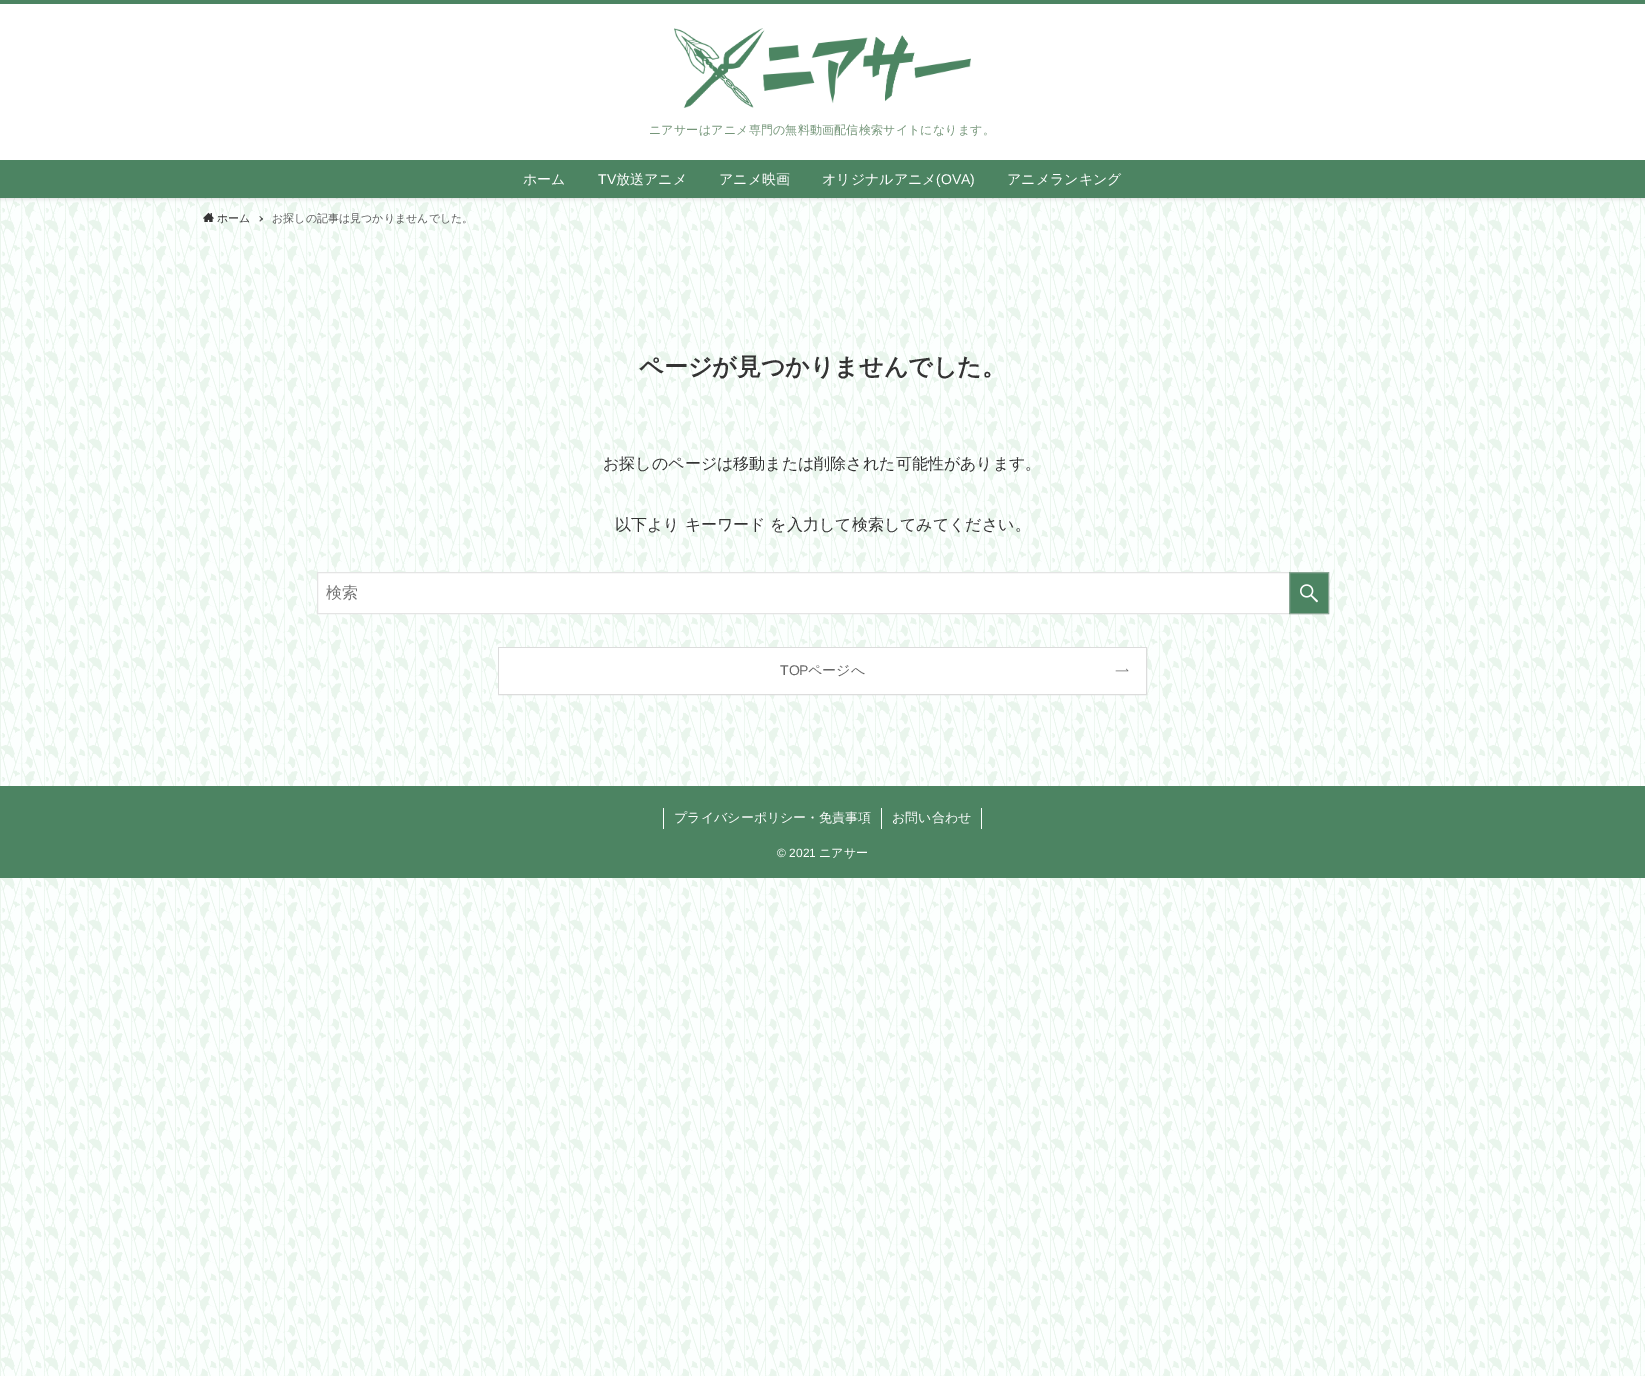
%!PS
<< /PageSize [1645 1376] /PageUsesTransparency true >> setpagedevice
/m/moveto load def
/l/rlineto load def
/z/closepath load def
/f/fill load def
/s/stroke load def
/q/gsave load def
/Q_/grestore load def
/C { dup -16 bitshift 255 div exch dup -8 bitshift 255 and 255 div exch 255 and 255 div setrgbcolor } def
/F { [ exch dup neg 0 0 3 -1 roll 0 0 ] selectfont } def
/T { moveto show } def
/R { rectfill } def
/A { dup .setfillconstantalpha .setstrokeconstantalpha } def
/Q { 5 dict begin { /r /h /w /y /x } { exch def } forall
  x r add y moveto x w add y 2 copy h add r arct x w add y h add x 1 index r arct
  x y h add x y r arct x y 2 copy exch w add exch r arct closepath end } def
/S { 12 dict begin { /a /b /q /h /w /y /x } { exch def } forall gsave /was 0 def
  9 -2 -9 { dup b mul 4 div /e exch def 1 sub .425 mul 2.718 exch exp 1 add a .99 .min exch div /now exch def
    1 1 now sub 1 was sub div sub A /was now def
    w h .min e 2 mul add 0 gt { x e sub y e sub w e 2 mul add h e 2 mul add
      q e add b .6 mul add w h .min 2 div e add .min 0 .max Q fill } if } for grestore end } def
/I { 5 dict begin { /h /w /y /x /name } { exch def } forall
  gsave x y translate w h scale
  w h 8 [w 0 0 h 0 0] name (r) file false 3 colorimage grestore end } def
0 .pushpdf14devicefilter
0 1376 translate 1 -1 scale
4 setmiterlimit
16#FCFFFE C
0 0 1645 1376 R
(2.rgb) 0 198 1645 1178 I
16#000000 C
0 1 1645 198 0 2 .12 S
16#FFFFFF C
0 4 1645 156 R
16#4C8462 C
0 0 1645 4 R
(1.rgb) 674 28 297 80 I
/WenQuanYiZenHei-Medium 12 F
16#759679 C
649 134 m .2 0 (ニアサーはアニメ専門の無料動画配信検索サイトになります。) ashow
16#4C8462 C
0 160 1645 38 R
/WenQuanYiZenHei-Medium 14 F
16#FFFFFF C
(ホーム) 523 184 T
/LiberationSans-Regular 14 F
(TV) 598 184 T
/WenQuanYiZenHei-Medium 14 F
(放送アニメ) 616 184 T
(アニメ映画) 719 184 T
(オリジナルアニメ) 822 184 T
/LiberationSans-Regular 14 F
(\(OVA\)) 936 184 T
/WenQuanYiZenHei-Medium 14 F
(アニメランキング) 1007 184 T
(3.rgb) 203 212 11 10 I
/WenQuanYiZenHei-Medium 11 F
16#333333 C
(ホーム) 217 222 T
0.8 A
260 216 m 3 3 l -1 .5 l -2.5 -3 l z f
262 218 m 1 1 l -3 2.5 l -.5 -.5 l z f
1 A
16#5A5B5B C
(お探しの記事は見つかりませんでした。) 272 222 T
/WenQuanYiZenHei-Bold 24 F
16#333333 C
(ページが見つかりませんでした。) 639 375 T
/WenQuanYiZenHei-Medium 16 F
(お探しのページは移動または削除された可能性があります。) 603 469 T
(以下より キーワード を入力して検索してみてください。) 615 530 T
16#FFFFFF C
318 573 971 40 R
16#E4E4E4 C
317.5 572.5 1011 41 rectstroke
16#757575 C
(検索) 326 598 T
16#4C8462 C
1289.5 572.5 m 39 0 l 0 41 l -39 0 l z q f Q_
16#8AA695 C
s
(4.rgb) 1300 584 18 19 I
16#DCDCDC C
498.5 647.5 648 47 rectstroke
16#FFFFFF C
499 648 647 46 R
/LiberationSans-Regular 14 F
16#666666 C
(TOP) 780 675 T
/WenQuanYiZenHei-Medium 14 F
(ページへ) 808 675 T
(5.rgb) 1115 668 14 4 I
16#4C8462 C
0 786 1645 92 R
16#FFFFFF C
881 808 1 21 R
663 808 1 21 R
/WenQuanYiZenHei-Medium 13 F
(プライバシーポリシー・免責事項) 674 822 T
981 808 1 21 R
(お問い合わせ) 892 822 T
/LiberationSans-Regular 12 F
(© 2021) 777 857 T
/WenQuanYiZenHei-Medium 12 F
(ニアサー) 819 857 T
.poppdf14devicefilter showpage
